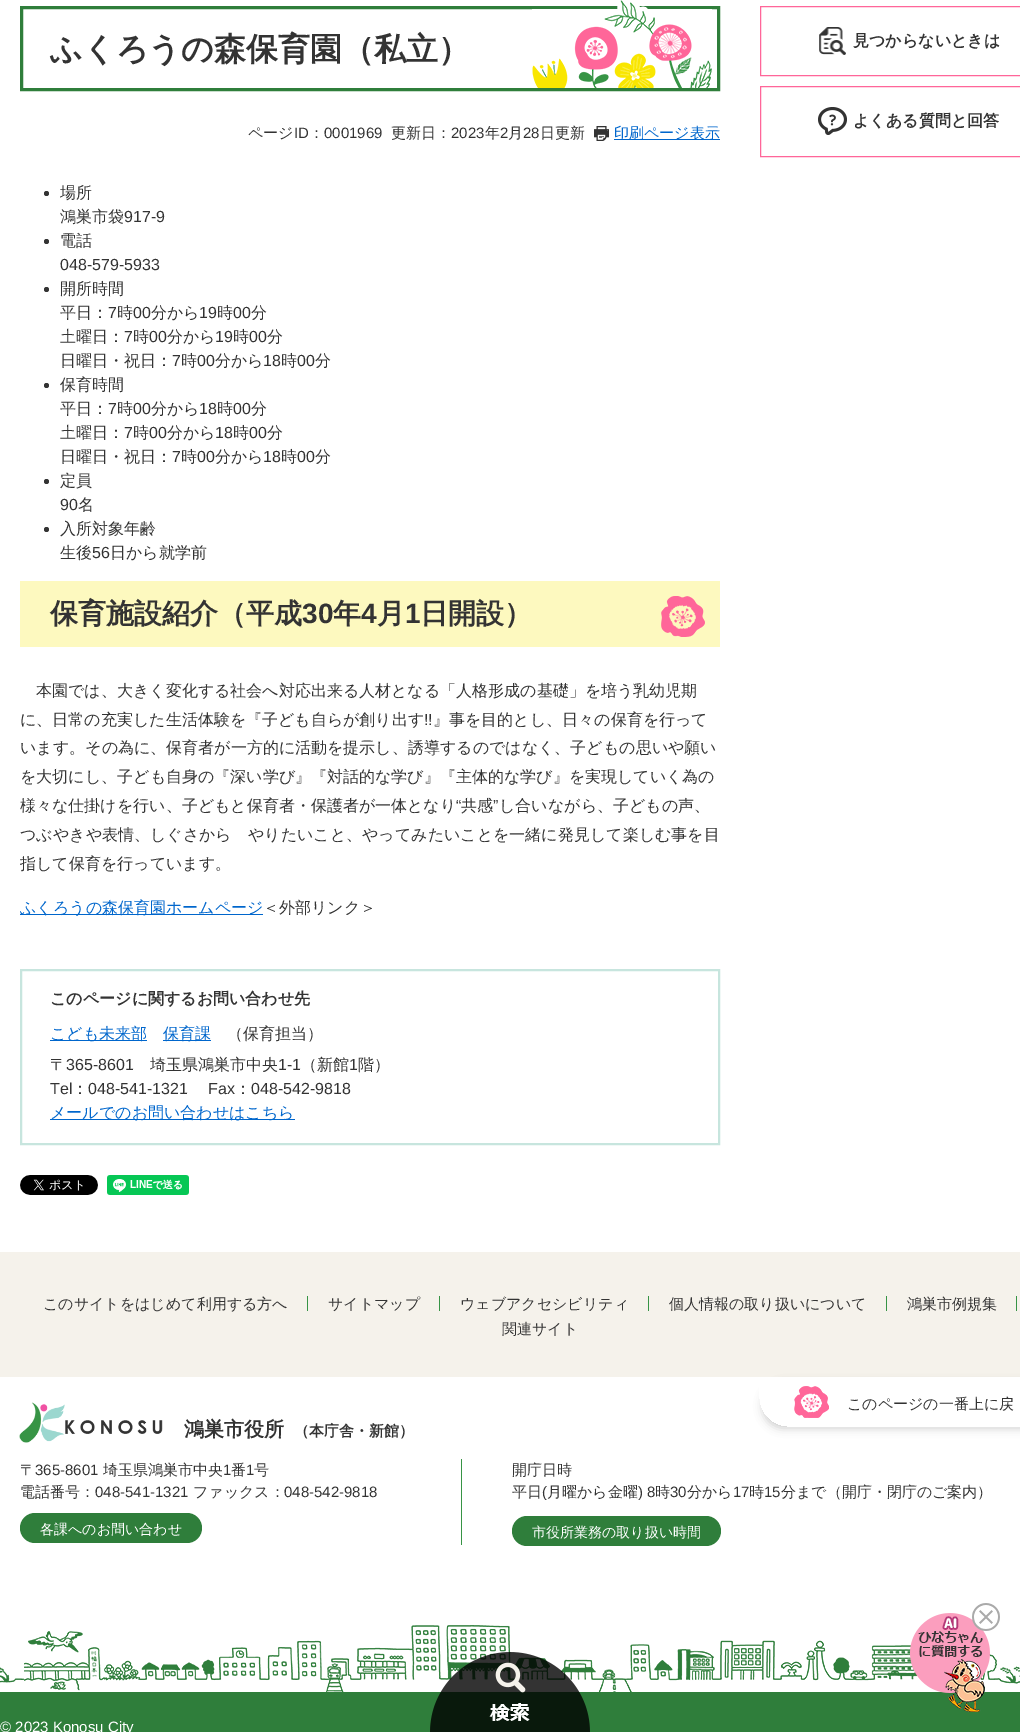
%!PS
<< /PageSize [1020 1732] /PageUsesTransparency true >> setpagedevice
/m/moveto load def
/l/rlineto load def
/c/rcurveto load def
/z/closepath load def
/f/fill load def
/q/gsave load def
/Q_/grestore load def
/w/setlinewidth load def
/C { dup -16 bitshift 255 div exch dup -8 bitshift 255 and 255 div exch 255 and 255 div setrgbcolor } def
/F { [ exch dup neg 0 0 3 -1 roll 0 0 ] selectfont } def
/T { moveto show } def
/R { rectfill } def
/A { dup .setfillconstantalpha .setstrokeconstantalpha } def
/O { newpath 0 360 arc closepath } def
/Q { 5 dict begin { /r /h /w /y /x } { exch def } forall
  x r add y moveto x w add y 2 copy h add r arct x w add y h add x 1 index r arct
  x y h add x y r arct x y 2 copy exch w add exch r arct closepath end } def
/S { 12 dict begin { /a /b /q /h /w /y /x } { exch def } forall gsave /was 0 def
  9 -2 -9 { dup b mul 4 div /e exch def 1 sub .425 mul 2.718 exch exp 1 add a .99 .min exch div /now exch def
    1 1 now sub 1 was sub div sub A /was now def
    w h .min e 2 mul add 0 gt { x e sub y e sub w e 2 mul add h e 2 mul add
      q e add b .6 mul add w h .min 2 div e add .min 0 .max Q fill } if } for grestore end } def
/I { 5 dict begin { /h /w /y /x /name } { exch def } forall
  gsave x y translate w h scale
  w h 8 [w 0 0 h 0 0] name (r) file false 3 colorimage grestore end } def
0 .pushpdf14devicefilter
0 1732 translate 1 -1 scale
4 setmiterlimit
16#FFFFFF C
0 0 1020 1732 R
16#2F7E3B C
3 w
21.5 7.5 697 82 rectstroke
/WenQuanYiZenHei-Bold 32 F
16#333333 C
(ふくろうの森保育園（私立）) 50 60 T
(1.rgb) 532 0 180 88 I
/WenQuanYiZenHei-Medium 15 F
(ページ) 248 138 T
/LiberationSans-Regular 15 F
(ID) 294 138 T
/WenQuanYiZenHei-Medium 15 F
(：) 309 138 T
/LiberationSans-Regular 15 F
(0001969) 324 138 T
/WenQuanYiZenHei-Medium 15 F
(更新日：) 391 138 T
/LiberationSans-Regular 15 F
(2023) 451 138 T
/WenQuanYiZenHei-Medium 15 F
(年) 485 138 T
/LiberationSans-Regular 15 F
(2) 500 138 T
/WenQuanYiZenHei-Medium 15 F
(月) 508 138 T
/LiberationSans-Regular 15 F
(28) 523 138 T
/WenQuanYiZenHei-Medium 15 F
(日更新) 540 138 T
(2.rgb) 594 126 15 15 I
16#0066CC C
614 139 106 1 R
(印刷ページ表示) 614 138 T
16#333333 C
46.5 193.5 2.5 O f
/WenQuanYiZenHei-Medium 16 F
(場所) 60 198 T
(鴻巣市袋) 60 222 T
/LiberationSans-Regular 16 F
(917-9) 124 222 T
46.5 241.5 2.5 O f
/WenQuanYiZenHei-Medium 16 F
(電話) 60 246 T
/LiberationSans-Regular 16 F
(048-579-5933) 60 270 T
46.5 289.5 2.5 O f
/WenQuanYiZenHei-Medium 16 F
(開所時間) 60 294 T
(平日：) 60 318 T
/LiberationSans-Regular 16 F
(7) 108 318 T
/WenQuanYiZenHei-Medium 16 F
(時) 117 318 T
/LiberationSans-Regular 16 F
(00) 133 318 T
/WenQuanYiZenHei-Medium 16 F
(分から) 151 318 T
/LiberationSans-Regular 16 F
(19) 199 318 T
/WenQuanYiZenHei-Medium 16 F
(時) 217 318 T
/LiberationSans-Regular 16 F
(00) 233 318 T
/WenQuanYiZenHei-Medium 16 F
(分) 251 318 T
(土曜日：) 60 342 T
/LiberationSans-Regular 16 F
(7) 124 342 T
/WenQuanYiZenHei-Medium 16 F
(時) 133 342 T
/LiberationSans-Regular 16 F
(00) 149 342 T
/WenQuanYiZenHei-Medium 16 F
(分から) 167 342 T
/LiberationSans-Regular 16 F
(19) 215 342 T
/WenQuanYiZenHei-Medium 16 F
(時) 233 342 T
/LiberationSans-Regular 16 F
(00) 249 342 T
/WenQuanYiZenHei-Medium 16 F
(分) 267 342 T
(日曜日・祝日：) 60 366 T
/LiberationSans-Regular 16 F
(7) 172 366 T
/WenQuanYiZenHei-Medium 16 F
(時) 181 366 T
/LiberationSans-Regular 16 F
(00) 197 366 T
/WenQuanYiZenHei-Medium 16 F
(分から) 215 366 T
/LiberationSans-Regular 16 F
(18) 263 366 T
/WenQuanYiZenHei-Medium 16 F
(時) 281 366 T
/LiberationSans-Regular 16 F
(00) 297 366 T
/WenQuanYiZenHei-Medium 16 F
(分) 315 366 T
46.5 385.5 2.5 O f
(保育時間) 60 390 T
(平日：) 60 414 T
/LiberationSans-Regular 16 F
(7) 108 414 T
/WenQuanYiZenHei-Medium 16 F
(時) 117 414 T
/LiberationSans-Regular 16 F
(00) 133 414 T
/WenQuanYiZenHei-Medium 16 F
(分から) 151 414 T
/LiberationSans-Regular 16 F
(18) 199 414 T
/WenQuanYiZenHei-Medium 16 F
(時) 217 414 T
/LiberationSans-Regular 16 F
(00) 233 414 T
/WenQuanYiZenHei-Medium 16 F
(分) 251 414 T
(土曜日：) 60 438 T
/LiberationSans-Regular 16 F
(7) 124 438 T
/WenQuanYiZenHei-Medium 16 F
(時) 133 438 T
/LiberationSans-Regular 16 F
(00) 149 438 T
/WenQuanYiZenHei-Medium 16 F
(分から) 167 438 T
/LiberationSans-Regular 16 F
(18) 215 438 T
/WenQuanYiZenHei-Medium 16 F
(時) 233 438 T
/LiberationSans-Regular 16 F
(00) 249 438 T
/WenQuanYiZenHei-Medium 16 F
(分) 267 438 T
(日曜日・祝日：) 60 462 T
/LiberationSans-Regular 16 F
(7) 172 462 T
/WenQuanYiZenHei-Medium 16 F
(時) 181 462 T
/LiberationSans-Regular 16 F
(00) 197 462 T
/WenQuanYiZenHei-Medium 16 F
(分から) 215 462 T
/LiberationSans-Regular 16 F
(18) 263 462 T
/WenQuanYiZenHei-Medium 16 F
(時) 281 462 T
/LiberationSans-Regular 16 F
(00) 297 462 T
/WenQuanYiZenHei-Medium 16 F
(分) 315 462 T
46.5 481.5 2.5 O f
(定員) 60 486 T
/LiberationSans-Regular 16 F
(90) 60 510 T
/WenQuanYiZenHei-Medium 16 F
(名) 78 510 T
46.5 529.5 2.5 O f
(入所対象年齢) 60 534 T
(生後) 60 558 T
/LiberationSans-Regular 16 F
(56) 92 558 T
/WenQuanYiZenHei-Medium 16 F
(日から就学前) 110 558 T
16#FDF9BF C
20 581 700 66 R
/WenQuanYiZenHei-Bold 28 F
16#333333 C
(保育施設紹介（平成) 50 623 T
/LiberationSans-Bold 28 F
(30) 302 623 T
/WenQuanYiZenHei-Bold 28 F
(年) 333 623 T
/LiberationSans-Bold 28 F
(4) 361 623 T
/WenQuanYiZenHei-Bold 28 F
(月) 377 623 T
/LiberationSans-Bold 28 F
(1) 405 623 T
/WenQuanYiZenHei-Bold 28 F
(日開設）) 420 623 T
(3.rgb) 661 596 44 41 I
/WenQuanYiZenHei-Medium 16 F
(本園では、大きく変化する社会へ対応出来る人材となる「人格形成の基礎」を培う乳幼児期) 36 696 T
(に、日常の充実した生活体験を『子ども自らが創り出す) 20 725 T
/LiberationSans-Regular 16 F
(!!) 424 725 T
/WenQuanYiZenHei-Medium 16 F
(』事を目的とし、日々の保育を行って) 433 725 T
(います。その為に、保育者が一方的に活動を提示し、誘導するのではなく、子どもの思いや願い) 20 753 T
(を大切にし、子ども自身の『深い学び』『対話的な学び』『主体的な学び』を実現していく為の) 20 782 T
(様々な仕掛けを行い、子どもと保育者・保護者が一体となり) 20 811 T
/LiberationSans-Regular 16 F
(“) 456 811 T
/WenQuanYiZenHei-Medium 16 F
(共感) 461 811 T
/LiberationSans-Regular 16 F
(”) 493 811 T
/WenQuanYiZenHei-Medium 16 F
(し合いながら、子どもの声、) 499 811 T
(つぶやきや表情、しぐさから　やりたいこと、やってみたいことを一緒に発見して楽しむ事を目) 20 840 T
(指して保育を行っています。) 20 869 T
16#0066CC C
20 914 243 1 R
(ふくろうの森保育園ホームページ) 20 913 T
16#333333 C
(＜外部リンク＞) 263 913 T
16#C7E5DE C
2 w
21 970 698 174 rectstroke
/WenQuanYiZenHei-Bold 16 F
16#333333 C
(このページに関するお問い合わせ先) 50 1004 T
16#0066CC C
50 1040 97 1 R
/WenQuanYiZenHei-Medium 16 F
(こども未来部) 50 1039 T
163 1040 48 1 R
(保育課) 163 1039 T
16#333333 C
(（保育担当）) 227 1039 T
(〒) 50 1070 T
/LiberationSans-Regular 16 F
(365-8601) 66 1070 T
/WenQuanYiZenHei-Medium 16 F
(埼玉県鴻巣市中央) 150 1070 T
/LiberationSans-Regular 16 F
(1-1) 278 1070 T
/WenQuanYiZenHei-Medium 16 F
(（新館) 301 1070 T
/LiberationSans-Regular 16 F
(1) 349 1070 T
/WenQuanYiZenHei-Medium 16 F
(階）) 358 1070 T
/LiberationSans-Regular 16 F
(Tel) 50 1094 T
/WenQuanYiZenHei-Medium 16 F
(：) 72 1094 T
/LiberationSans-Regular 16 F
(048-541-1321) 88 1094 T
(Fax) 208 1094 T
/WenQuanYiZenHei-Medium 16 F
(：) 235 1094 T
/LiberationSans-Regular 16 F
(048-542-9818) 251 1094 T
16#0066CC C
50 1119 245 1 R
/WenQuanYiZenHei-Medium 16 F
(メールでのお問い合わせはこちら) 50 1118 T
(4.rgb) 20 1175 78 20 I
(5.rgb) 107 1175 82 20 I
16#FF6699 C
1 w
760.5 6.5 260 69 rectstroke
(6.rgb) 819 27 27 28 I
/WenQuanYiZenHei-Bold 16 F
16#333333 C
(見つからないときは) 853 46 T
16#FF6699 C
760.5 86.5 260 70 rectstroke
(7.rgb) 818 107 29 28 I
16#333333 C
(よくある質問と回答) 853 126 T
16#F5F2EB C
0 1252 1020 125 R
16#379445 C
307 1296 1 15 R
/WenQuanYiZenHei-Medium 15 F
16#333333 C
(このサイトをはじめて利用する方へ) 43 1309 T
16#379445 C
439 1296 1 15 R
16#333333 C
(サイトマップ) 328 1309 T
16#379445 C
648 1296 1 15 R
16#333333 C
(ウェブアクセシビリティ) 460 1309 T
16#379445 C
886 1296 1 15 R
16#333333 C
(個人情報の取り扱いについて) 669 1309 T
16#379445 C
1016 1296 1 15 R
16#333333 C
(鴻巣市例規集) 907 1309 T
(関連サイト) 502 1334 T
(8.rgb) 0 1625 1020 67 I
q
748 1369 m 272 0 l 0 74 l -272 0 l z 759 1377 m 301 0 l 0 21 l 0 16 -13 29 -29 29 c -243 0 l -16 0 -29 -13 -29 -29 c z eoclip newpath
16#000000 C
763 1384 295 44 26 4.5 .2 S
Q_
(9.rgb) 794 1386 35 32 I
(このページの一番上に戻) 847 1409 T
(10.rgb) 19 1402 144 41 I
/WenQuanYiZenHei-Bold 20 F
(鴻巣市役所) 184 1436 T
/WenQuanYiZenHei-Bold 15 F
(（本庁舎・新館）) 294 1436 T
16#379445 C
461 1459 1 86 R
/WenQuanYiZenHei-Medium 15 F
16#333333 C
(〒) 20 1475 T
/LiberationSans-Regular 15 F
(365-8601) 35 1475 T
/WenQuanYiZenHei-Medium 15 F
(埼玉県鴻巣市中央) 103 1475 T
/LiberationSans-Regular 15 F
(1) 223 1475 T
/WenQuanYiZenHei-Medium 15 F
(番) 231 1475 T
/LiberationSans-Regular 15 F
(1) 246 1475 T
/WenQuanYiZenHei-Medium 15 F
(号) 254 1475 T
(電話番号：) 20 1497 T
/LiberationSans-Regular 15 F
(048-541-1321) 95 1497 T
/WenQuanYiZenHei-Medium 15 F
(ファックス：) 193 1497 T
/LiberationSans-Regular 15 F
(048-542-9818) 284 1497 T
16#2F7E3B C
20 1513 182 30 15 Q f
/WenQuanYiZenHei-Medium 14 F
16#FFFFFF C
(各課へのお問い合わせ) 40 1534 T
/WenQuanYiZenHei-Medium 15 F
16#333333 C
(開庁日時) 512 1475 T
(平日) 512 1497 T
/LiberationSans-Regular 15 F
(\() 542 1497 T
/WenQuanYiZenHei-Medium 15 F
(月曜から金曜) 547 1497 T
/LiberationSans-Regular 15 F
(\) 8) 638 1497 T
/WenQuanYiZenHei-Medium 15 F
(時) 655 1497 T
/LiberationSans-Regular 15 F
(30) 670 1497 T
/WenQuanYiZenHei-Medium 15 F
(分から) 687 1497 T
/LiberationSans-Regular 15 F
(17) 733 1497 T
/WenQuanYiZenHei-Medium 15 F
(時) 749 1497 T
/LiberationSans-Regular 15 F
(15) 764 1497 T
/WenQuanYiZenHei-Medium 15 F
(分まで（開庁・閉庁のご案内）) 781 1497 T
16#2F7E3B C
512 1516 209 30 15 Q f
/WenQuanYiZenHei-Medium 14 F
16#FFFFFF C
(市役所業務の取り扱い時間) 532 1537 T
16#2F7E3B C
0 1692 1020 40 R
/LiberationSans-Regular 15 F
16#FFFFFF C
(© 2023 Konosu City) 0 1732 T
(11.rgb) 430 1652 160 80 I
(12.rgb) 910 1603 90 109 I
.poppdf14devicefilter showpage
